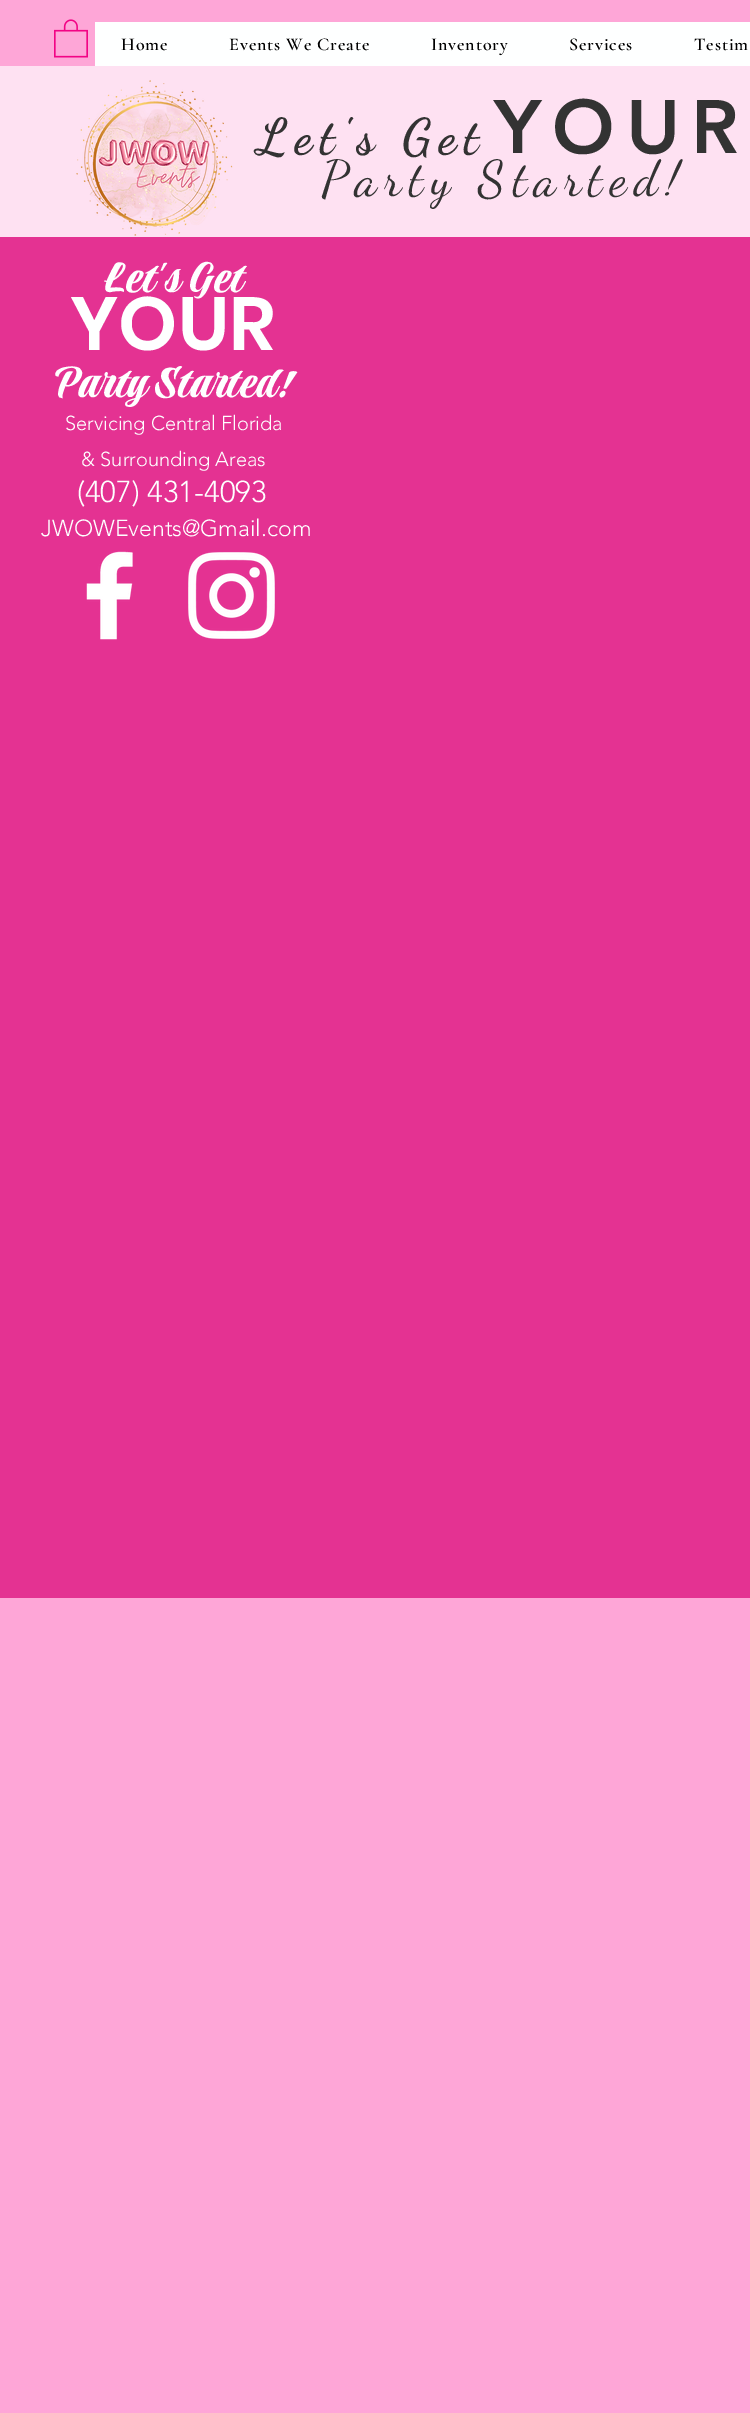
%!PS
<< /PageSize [750 2413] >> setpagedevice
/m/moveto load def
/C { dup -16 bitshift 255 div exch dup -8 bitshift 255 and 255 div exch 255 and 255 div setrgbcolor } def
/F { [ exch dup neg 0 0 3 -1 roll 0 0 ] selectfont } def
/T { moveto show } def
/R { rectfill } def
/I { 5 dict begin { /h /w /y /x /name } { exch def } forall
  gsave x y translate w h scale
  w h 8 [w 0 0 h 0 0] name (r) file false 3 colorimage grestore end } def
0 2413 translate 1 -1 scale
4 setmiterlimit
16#FEA6D7 C
0 0 750 2413 R
(1.rgb) 54 19 34 39 I
16#FEFFFF C
95 22 655 44 R
/CormorantGaramond-SemiBold 18 F
16#000000 C
121 50 m .9 0 (Home) ashow
229 50 m .9 0 (Events We Create) ashow
431 50 m .9 0 (Inventory) ashow
569 50 m .9 0 (Services) ashow
694 50 m .9 0 (Testim) ashow
16#FEE1F2 C
0 66 750 171 R
(2.rgb) 76 80 157 156 I
/DancingScript-Bold 50 F
16#333333 C
257 153 m 7.5 0 (Let's Get) ashow
/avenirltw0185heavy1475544-Black 75 F
494 153 m 11 0 (YOUR) ashow
/DancingScript-Regular 50 F
321 195 m 7.5 0 (Party Started!) ashow
16#E43292 C
0 237 750 1361 R
/Praise-Regular 50 F
16#FEFFFF C
(Let's Get) 103 292 T
/Poppins-SemiBold 75 F
(YOUR) 70 350 T
/Praise-Regular 50 F
(Party Started!) 54 397 T
/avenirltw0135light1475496-Light 20 F
(Servicing Central Florida) 65 430 T
(& Surrounding Areas) 81 466 T
/avenirltw0135light1475496-Light 30 F
(\(407\) 431-4093) 77 502 T
/avenirltw0135light1475496-Light 23 F
(JWOWEvents@Gmail.com) 41 536 T
(3.rgb) 86 551 47 89 I
(4.rgb) 188 552 87 87 I
showpage
